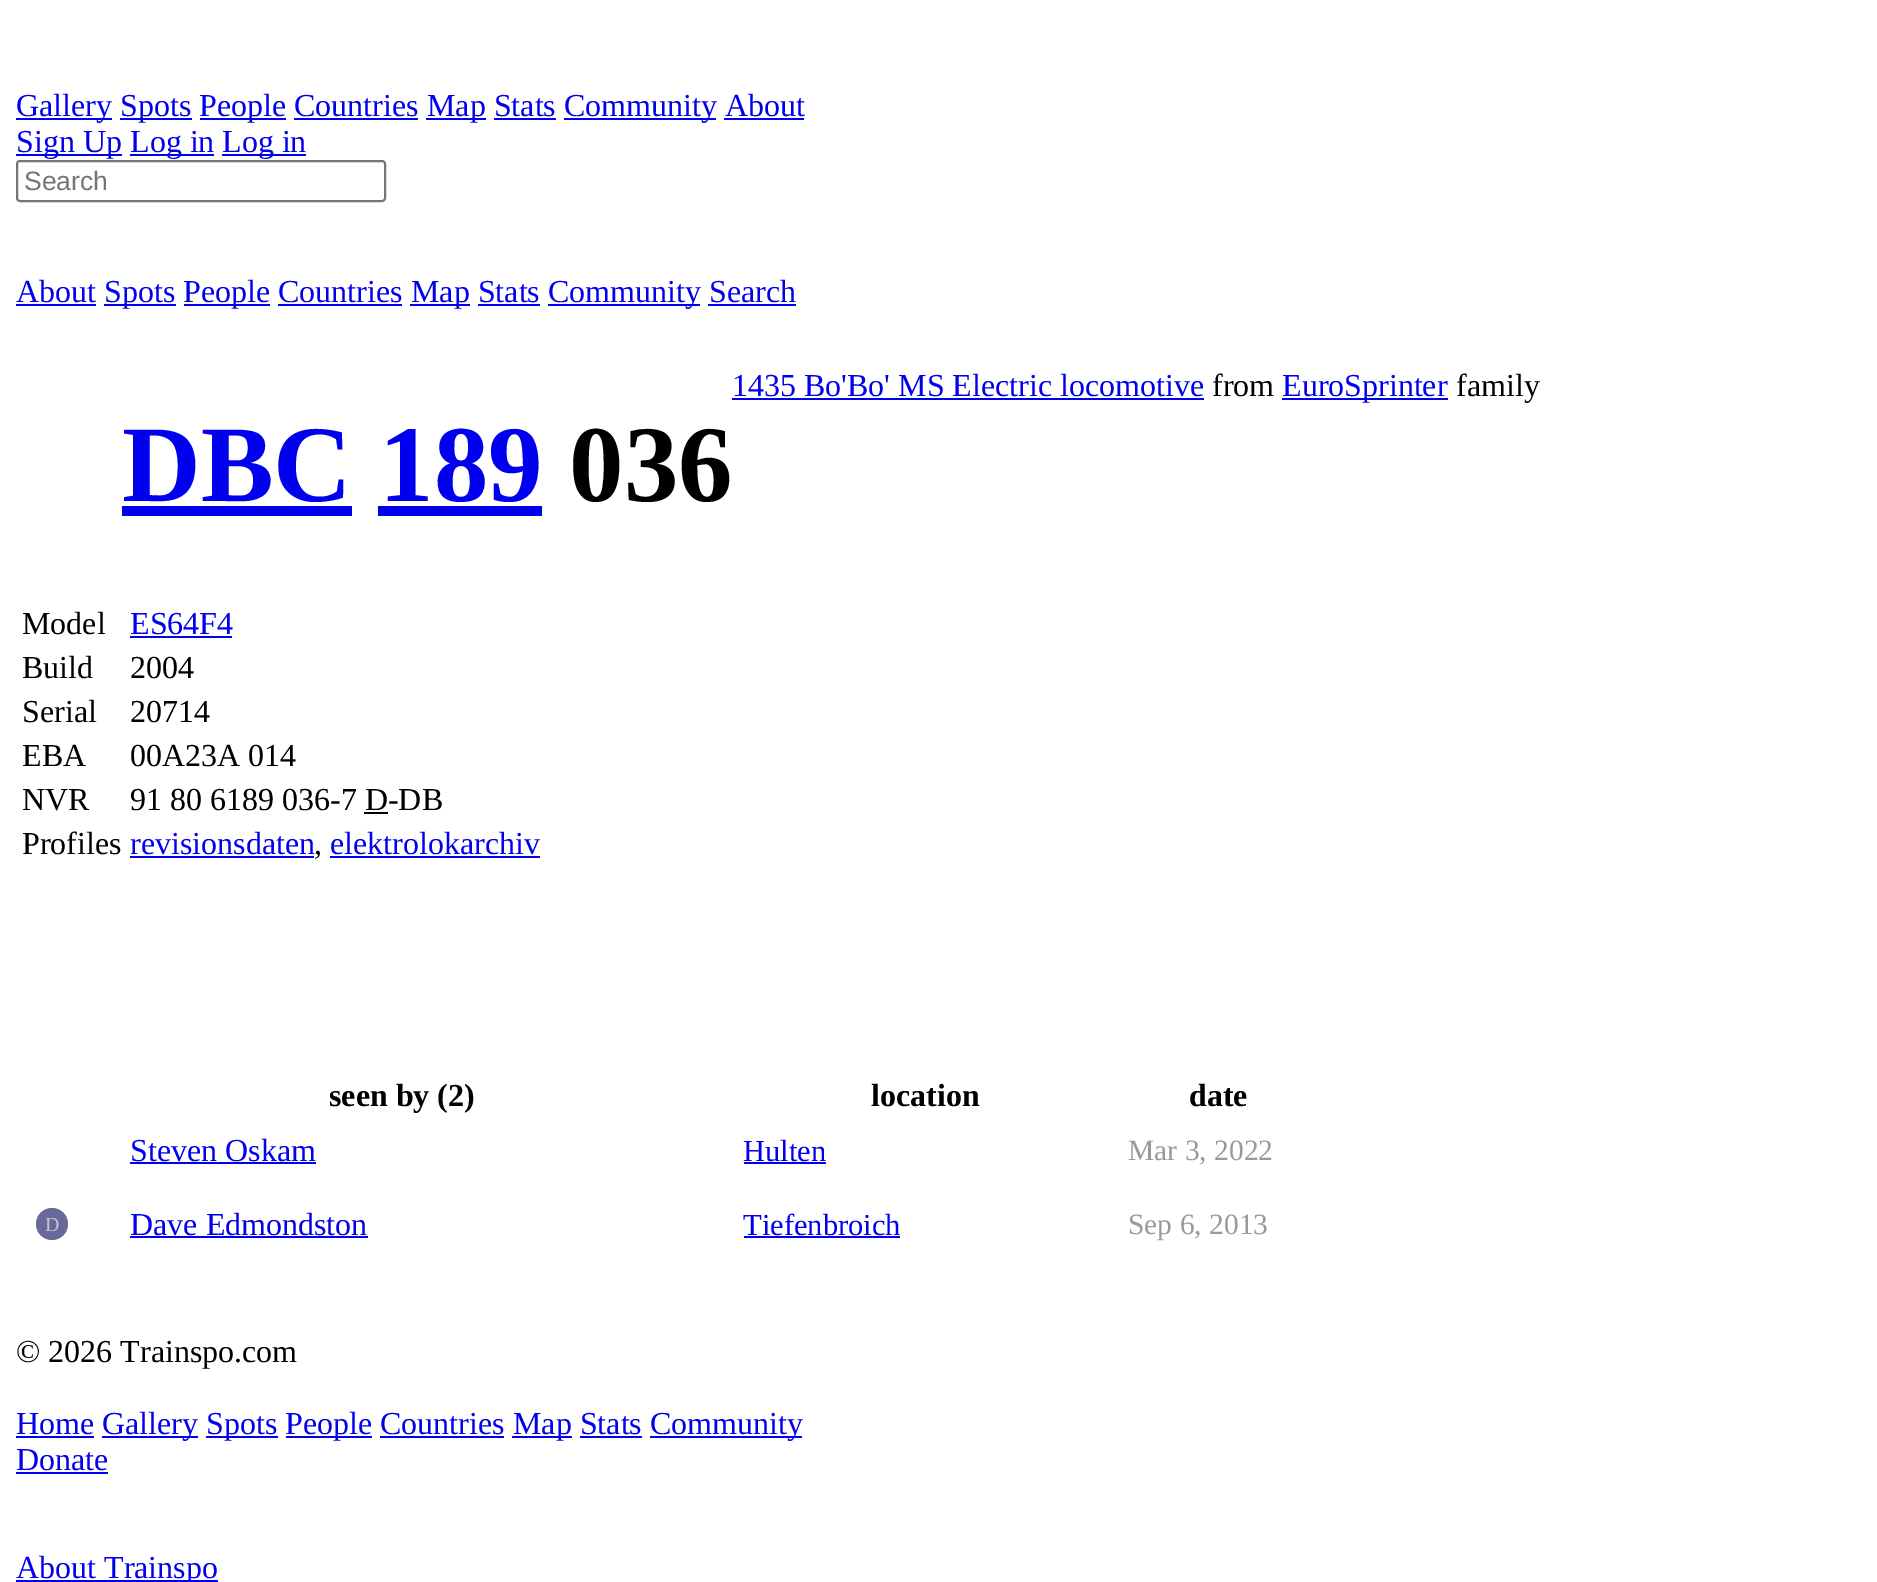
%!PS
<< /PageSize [1877 1582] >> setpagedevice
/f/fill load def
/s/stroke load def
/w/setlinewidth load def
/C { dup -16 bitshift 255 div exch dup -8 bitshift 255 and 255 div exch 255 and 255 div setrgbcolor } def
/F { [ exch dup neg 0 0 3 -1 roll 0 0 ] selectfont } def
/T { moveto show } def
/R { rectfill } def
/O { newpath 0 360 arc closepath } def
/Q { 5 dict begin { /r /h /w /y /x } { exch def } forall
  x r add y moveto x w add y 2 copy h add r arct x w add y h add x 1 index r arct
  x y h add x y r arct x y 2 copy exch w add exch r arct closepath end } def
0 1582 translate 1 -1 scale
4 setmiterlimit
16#FFFFFF C
0 0 1877 1582 R
16#0000EE C
16 118 96 2 R
/LiberationSerif-Regular 32 F
(Gallery) 16 116 T
120 118 72 2 R
(Spots) 120 116 T
200 118 86 2 R
(People Countries) 199 116 T
426 118 60 2 R
(Map Stats) 427 116 T
564 118 152 2 R
(Community About) 564 116 T
294 118 124 2 R
494 118 62 2 R
724 118 80 2 R
16 154 106 2 R
(Sign Up) 16 152 T
130 154 84 2 R
(Log in) 130 152 T
222 154 84 2 R
(Log in) 222 152 T
16#767676 C
2 w
17 161 368 40 3 Q s
/LiberationSans-Regular 26.5 F
16#757575 C
(Search) 24 190 T
/LiberationSerif-Regular 32 F
16#0000EE C
(About) 16 302 T
16 304 80 2 R
104 304 72 2 R
(Spots) 104 302 T
184 304 86 2 R
(People Countries) 183 302 T
410 304 60 2 R
(Map Stats) 411 302 T
548 304 152 2 R
(Community Search) 548 302 T
278 304 124 2 R
478 304 62 2 R
708 304 88 2 R
(1435 Bo'Bo' MS Electric locomotive) 732 396 T
732 398 472 2 R
16#000000 C
(from) 1212 396 T
16#0000EE C
1282 398 166 2 R
(EuroSprinter) 1282 396 T
16#000000 C
(family) 1456 396 T
/LiberationSerif-Bold 109 F
16#0000EE C
(DBC 189) 122 501 T
122 506 230 10 R
16#000000 C
(036) 569 501 T
16#0000EE C
378 506 164 10 R
/LiberationSerif-Regular 32 F
16#000000 C
(Model) 22 634 T
16#0000EE C
(ES64F4) 130 634 T
130 636 102 2 R
16#000000 C
(Build) 22 678 T
(2004) 130 678 T
(Serial) 22 722 T
(20714) 130 722 T
(EBA) 22 766 T
(00A23A 014) 130 766 T
(NVR) 22 810 T
(91 80 6189 036-7 D-DB) 130 810 T
364 812 24 2 R
(Profiles) 22 854 T
16#0000EE C
(revisionsdaten) 130 854 T
130 856 184 2 R
16#000000 C
(,) 314 854 T
16#0000EE C
(elektrolokarchiv) 330 854 T
330 856 210 2 R
/LiberationSerif-Bold 32 F
16#000000 C
(seen by \(2\)) 329 1106 T
(location) 871 1106 T
(date) 1189 1106 T
/LiberationSerif-Regular 32 F
16#0000EE C
(Steven Oskam) 130 1161 T
130 1162 186 2 R
/LiberationSerif-Regular 30.5 F
(Hulten) 743 1161 T
744 1162 82 2 R
/LiberationSerif-Regular 29.5 F
16#999999 C
(Mar 3, 2022) 1128 1160 T
16#696999 C
52 1224 16 O f
/LiberationSerif-Regular 20 F
16#C3C3D6 C
(D) 45 1231 T
/LiberationSerif-Regular 32 F
16#0000EE C
(Dave Edmondston) 130 1235 T
130 1236 238 2 R
/LiberationSerif-Regular 30.5 F
(Tiefenbroich) 743 1235 T
744 1236 156 2 R
/LiberationSerif-Regular 29.5 F
16#999999 C
(Sep 6, 2013) 1128 1234 T
/LiberationSerif-Regular 32 F
16#000000 C
(© 2026 Trainspo.com) 16 1362 T
16#0000EE C
(Home) 16 1434 T
16 1436 78 2 R
102 1436 96 2 R
(Gallery) 102 1434 T
206 1436 72 2 R
(Spots) 206 1434 T
286 1436 86 2 R
(People Countries) 285 1434 T
512 1436 60 2 R
(Map Stats) 513 1434 T
650 1436 152 2 R
(Community) 650 1434 T
380 1436 124 2 R
580 1436 62 2 R
(Donate) 16 1470 T
16 1472 92 2 R
16 1580 202 2 R
(About Trainspo) 16 1578 T
showpage
